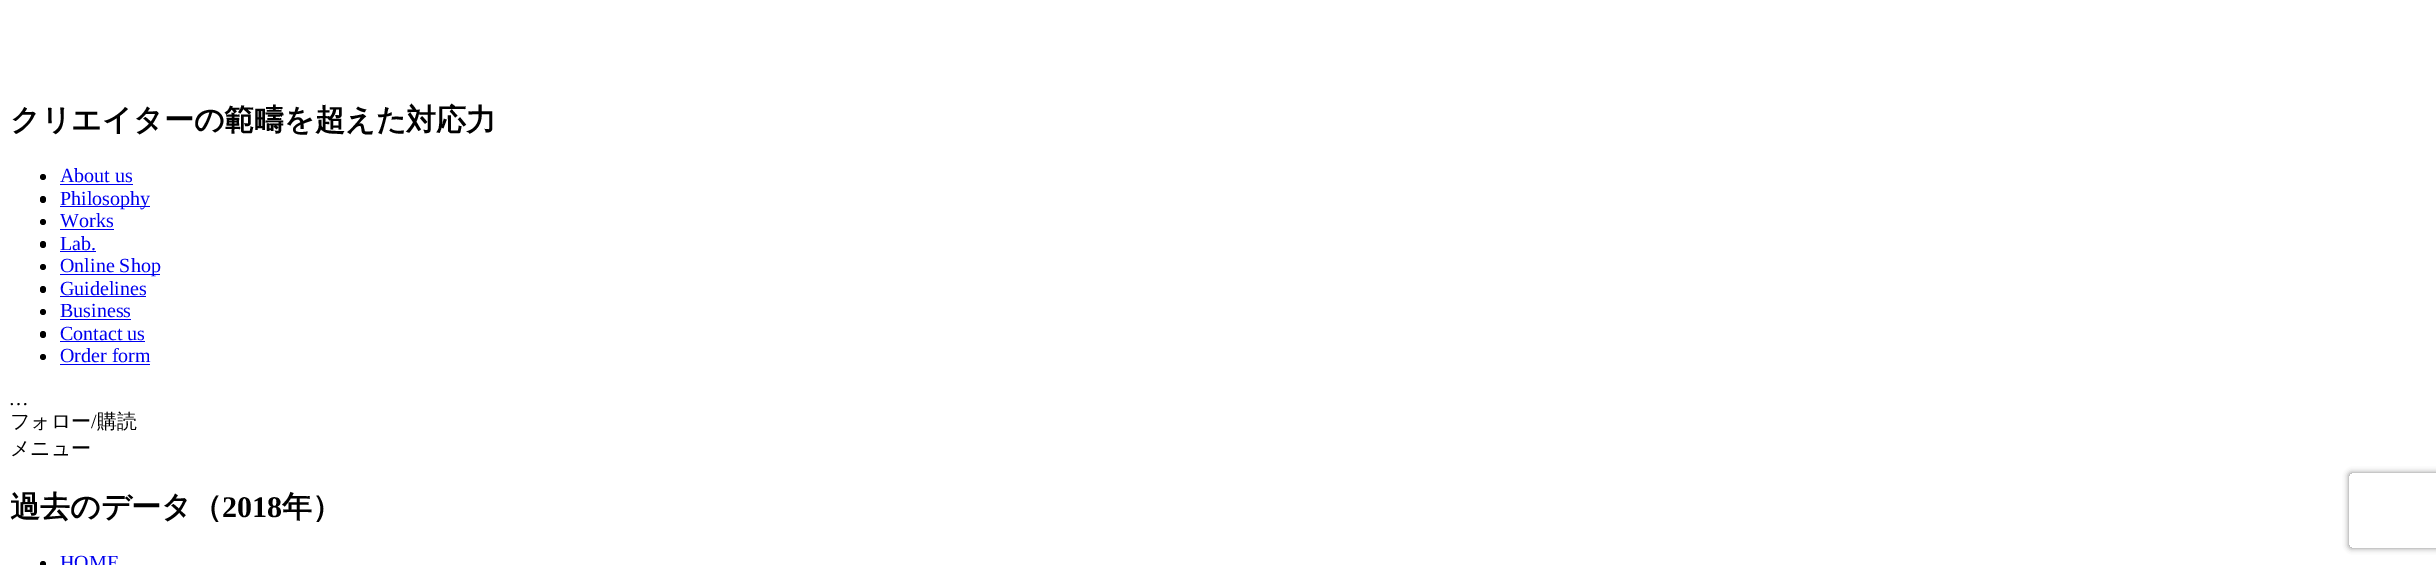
%!PS
<< /PageSize [2436 565] /PageUsesTransparency true >> setpagedevice
/m/moveto load def
/l/rlineto load def
/c/rcurveto load def
/z/closepath load def
/f/fill load def
/q/gsave load def
/Q_/grestore load def
/C { dup -16 bitshift 255 div exch dup -8 bitshift 255 and 255 div exch 255 and 255 div setrgbcolor } def
/F { [ exch dup neg 0 0 3 -1 roll 0 0 ] selectfont } def
/T { moveto show } def
/R { rectfill } def
/A { dup .setfillconstantalpha .setstrokeconstantalpha } def
/O { newpath 0 360 arc closepath } def
/Q { 5 dict begin { /r /h /w /y /x } { exch def } forall
  x r add y moveto x w add y 2 copy h add r arct x w add y h add x 1 index r arct
  x y h add x y r arct x y 2 copy exch w add exch r arct closepath end } def
/S { 12 dict begin { /a /b /q /h /w /y /x } { exch def } forall gsave /was 0 def
  9 -2 -9 { dup b mul 4 div /e exch def 1 sub .425 mul 2.718 exch exp 1 add a .99 .min exch div /now exch def
    1 1 now sub 1 was sub div sub A /was now def
    w h .min e 2 mul add 0 gt { x e sub y e sub w e 2 mul add h e 2 mul add
      q e add b .6 mul add w h .min 2 div e add .min 0 .max Q fill } if } for grestore end } def
0 .pushpdf14devicefilter
0 565 translate 1 -1 scale
4 setmiterlimit
16#FFFFFF C
0 0 2436 565 R
/WenQuanYiZenHei-Bold 30 F
16#000000 C
(クリエイターの範疇を超えた対応力) 10 130 T
43 177 3 O f
/LiberationSerif-Regular 20 F
16#0000EE C
(About us) 60 182 T
60 184 73 1 R
16#000000 C
40 196 6 7 3 Q f
16#0000EE C
60 206 90 1 R
(Philosophy) 60 205 T
16#000000 C
43 222 3 O f
16#0000EE C
(Works) 60 227 T
60 229 54 1 R
16#000000 C
40 241 6 7 3 Q f
16#0000EE C
(Lab.) 60 250 T
60 251 36 1 R
16#000000 C
43 267 3 O f
16#0000EE C
60 274 100 1 R
(Online Shop) 60 272 T
16#000000 C
40 286 6 7 3 Q f
16#0000EE C
(Guidelines) 60 295 T
60 296 86 1 R
16#000000 C
43 312 3 O f
16#0000EE C
(Business) 60 317 T
60 319 71 1 R
16#000000 C
40 331 6 7 3 Q f
16#0000EE C
(Contact us) 60 340 T
60 341 85 1 R
16#000000 C
43 357 3 O f
16#0000EE C
(Order form) 60 362 T
60 364 90 1 R
/LiberationSerif-Italic 20 F
16#000000 C
(…) 10 405 T
/WenQuanYiZenHei-Medium 20 F
(フォロー) 10 428 T
/LiberationSerif-Regular 20 F
(/) 91 428 T
/WenQuanYiZenHei-Medium 20 F
(購読) 97 428 T
(メニュー) 10 455 T
/WenQuanYiZenHei-Bold 30 F
(過去のデータ（) 10 517 T
/LiberationSerif-Bold 30 F
(2018) 222 517 T
/WenQuanYiZenHei-Bold 30 F
(年）) 282 517 T
40 561 6 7 3 Q f
/LiberationSerif-Regular 20 F
16#0000EE C
(HOME) 60 569 T
q
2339 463 m 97 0 l 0 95 l -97 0 l z 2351.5 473 m 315 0 l 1.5 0 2.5 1 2.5 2.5 c 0 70 l 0 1.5 -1 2.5 -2.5 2.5 c -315 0 l -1.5 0 -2.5 -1 -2.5 -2.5 c 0 -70 l 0 -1.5 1 -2.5 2.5 -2.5 c z eoclip newpath
16#808080 C
2349 473 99 75 2.5 3 1 S
Q_
.poppdf14devicefilter showpage
